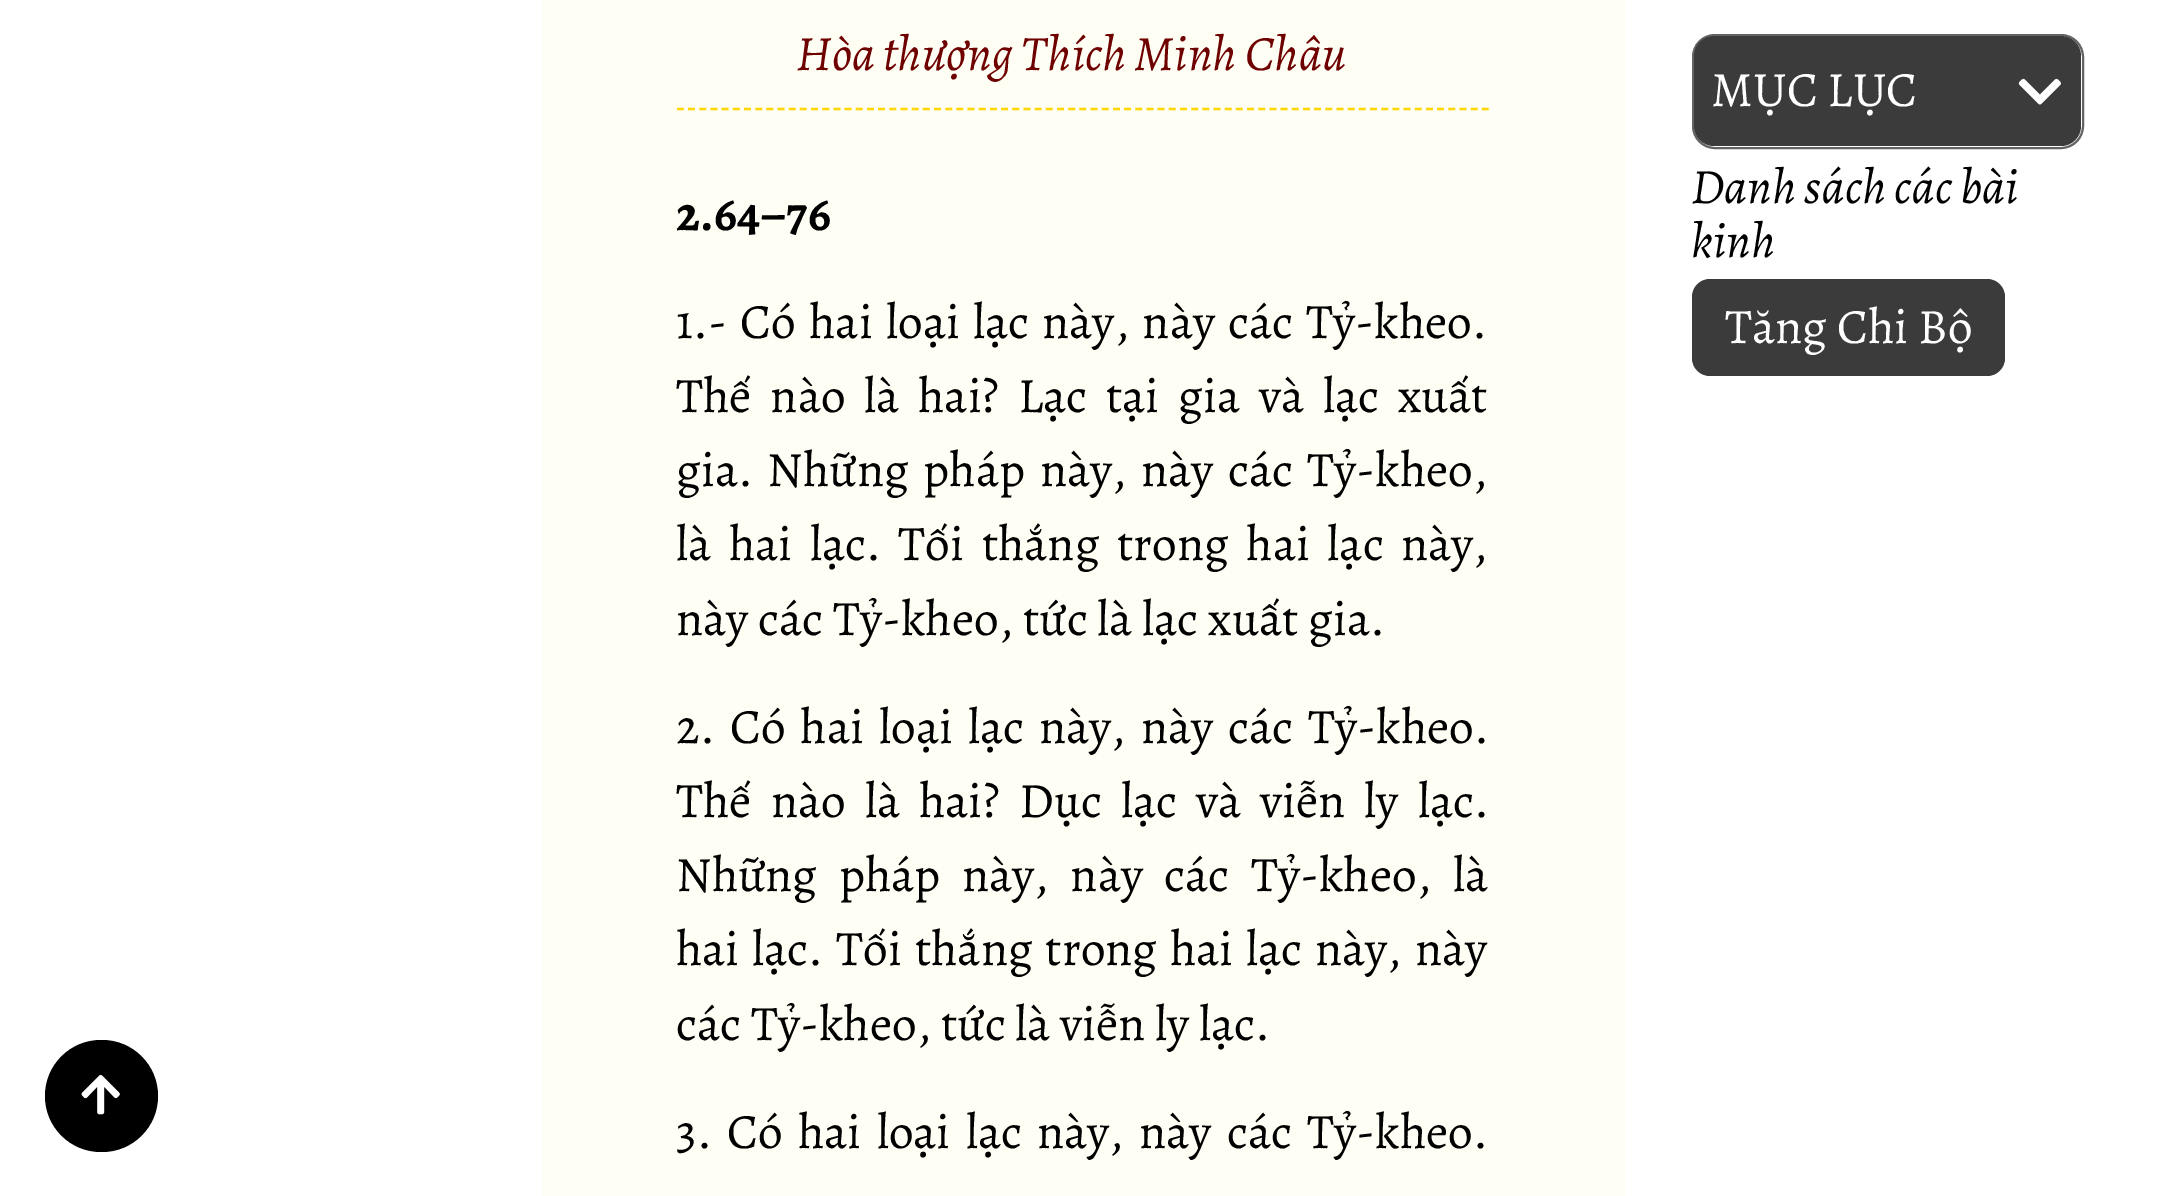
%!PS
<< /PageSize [2164 1196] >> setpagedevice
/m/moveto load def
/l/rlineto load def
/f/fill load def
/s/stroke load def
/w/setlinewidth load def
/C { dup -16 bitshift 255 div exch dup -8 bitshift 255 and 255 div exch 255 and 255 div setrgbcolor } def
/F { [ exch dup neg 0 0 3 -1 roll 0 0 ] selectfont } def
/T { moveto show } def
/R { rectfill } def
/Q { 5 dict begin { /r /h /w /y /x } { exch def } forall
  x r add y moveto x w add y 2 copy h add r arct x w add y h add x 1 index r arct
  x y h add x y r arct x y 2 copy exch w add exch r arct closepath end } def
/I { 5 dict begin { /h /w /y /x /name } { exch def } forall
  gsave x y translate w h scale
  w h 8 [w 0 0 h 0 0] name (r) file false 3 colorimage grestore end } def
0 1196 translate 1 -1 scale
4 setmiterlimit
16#FFFFFF C
0 0 2164 1196 R
16#000000 C
45 1040 113 112 56 Q f
(1.rgb) 81 1075 39 40 I
16#FFFEF4 C
542 0 1083 1196 R
16#FFD600 C
2.2 w
[6.75 4.43] 0 setdash
677 109 m 812.5 0 l s
/Alegreya-Italic 49.5 F
16#6F0000 C
(Hòa thượng Thích Minh Châu) 796 70 T
/Alegreya-Bold 49.5 F
16#000000 C
(2.64–76) 676 230 T
/Alegreya-Regular 49.5 F
676 338 m 3.5 0 32 (1.- Có hai loại lạc này, này các Tỷ-kheo.) widthshow
676 412 m 9 0 32 (Thế nào là hai? Lạc tại gia và lạc xuất) widthshow
676 486 m 4.75 0 32 (gia. Những pháp này, này các Tỷ-kheo,) widthshow
676 560 m 7.75 0 32 (là hai lạc. Tối thắng trong hai lạc này,) widthshow
(này các Tỷ-kheo, tức là lạc xuất gia.) 676 635 T
676 743 m 5.25 0 32 (2. Có hai loại lạc này, này các Tỷ-kheo.) widthshow
676 817 m 9.25 0 32 (Thế nào là hai? Dục lạc và viễn ly lạc.) widthshow
676 891 m 11.75 0 32 (Những pháp này, này các Tỷ-kheo, là) widthshow
676 965 m 3 0 32 (hai lạc. Tối thắng trong hai lạc này, này) widthshow
(các Tỷ-kheo, tức là viễn ly lạc.) 676 1040 T
676 1148 m 5.5 0 32 (3. Có hai loại lạc này, này các Tỷ-kheo.) widthshow
16#636363 C
2 w
[] 0 setdash
1693 35 390 113 22 Q s
16#3B3B3B C
1694 36 387 110 20 Q f
16#FFFFFF C
(MỤC LỤC) 1711 106 T
(2.rgb) 2018 78 43 27 I
/Alegreya-Italic 49.5 F
16#000000 C
(Danh sách các bài) 1691 203 T
(kinh) 1691 257 T
16#3B3B3B C
1692 279 313 97 18 Q f
/Alegreya-Regular 49.5 F
16#FFFFFF C
(Tăng Chi Bộ) 1725 343 T
showpage
